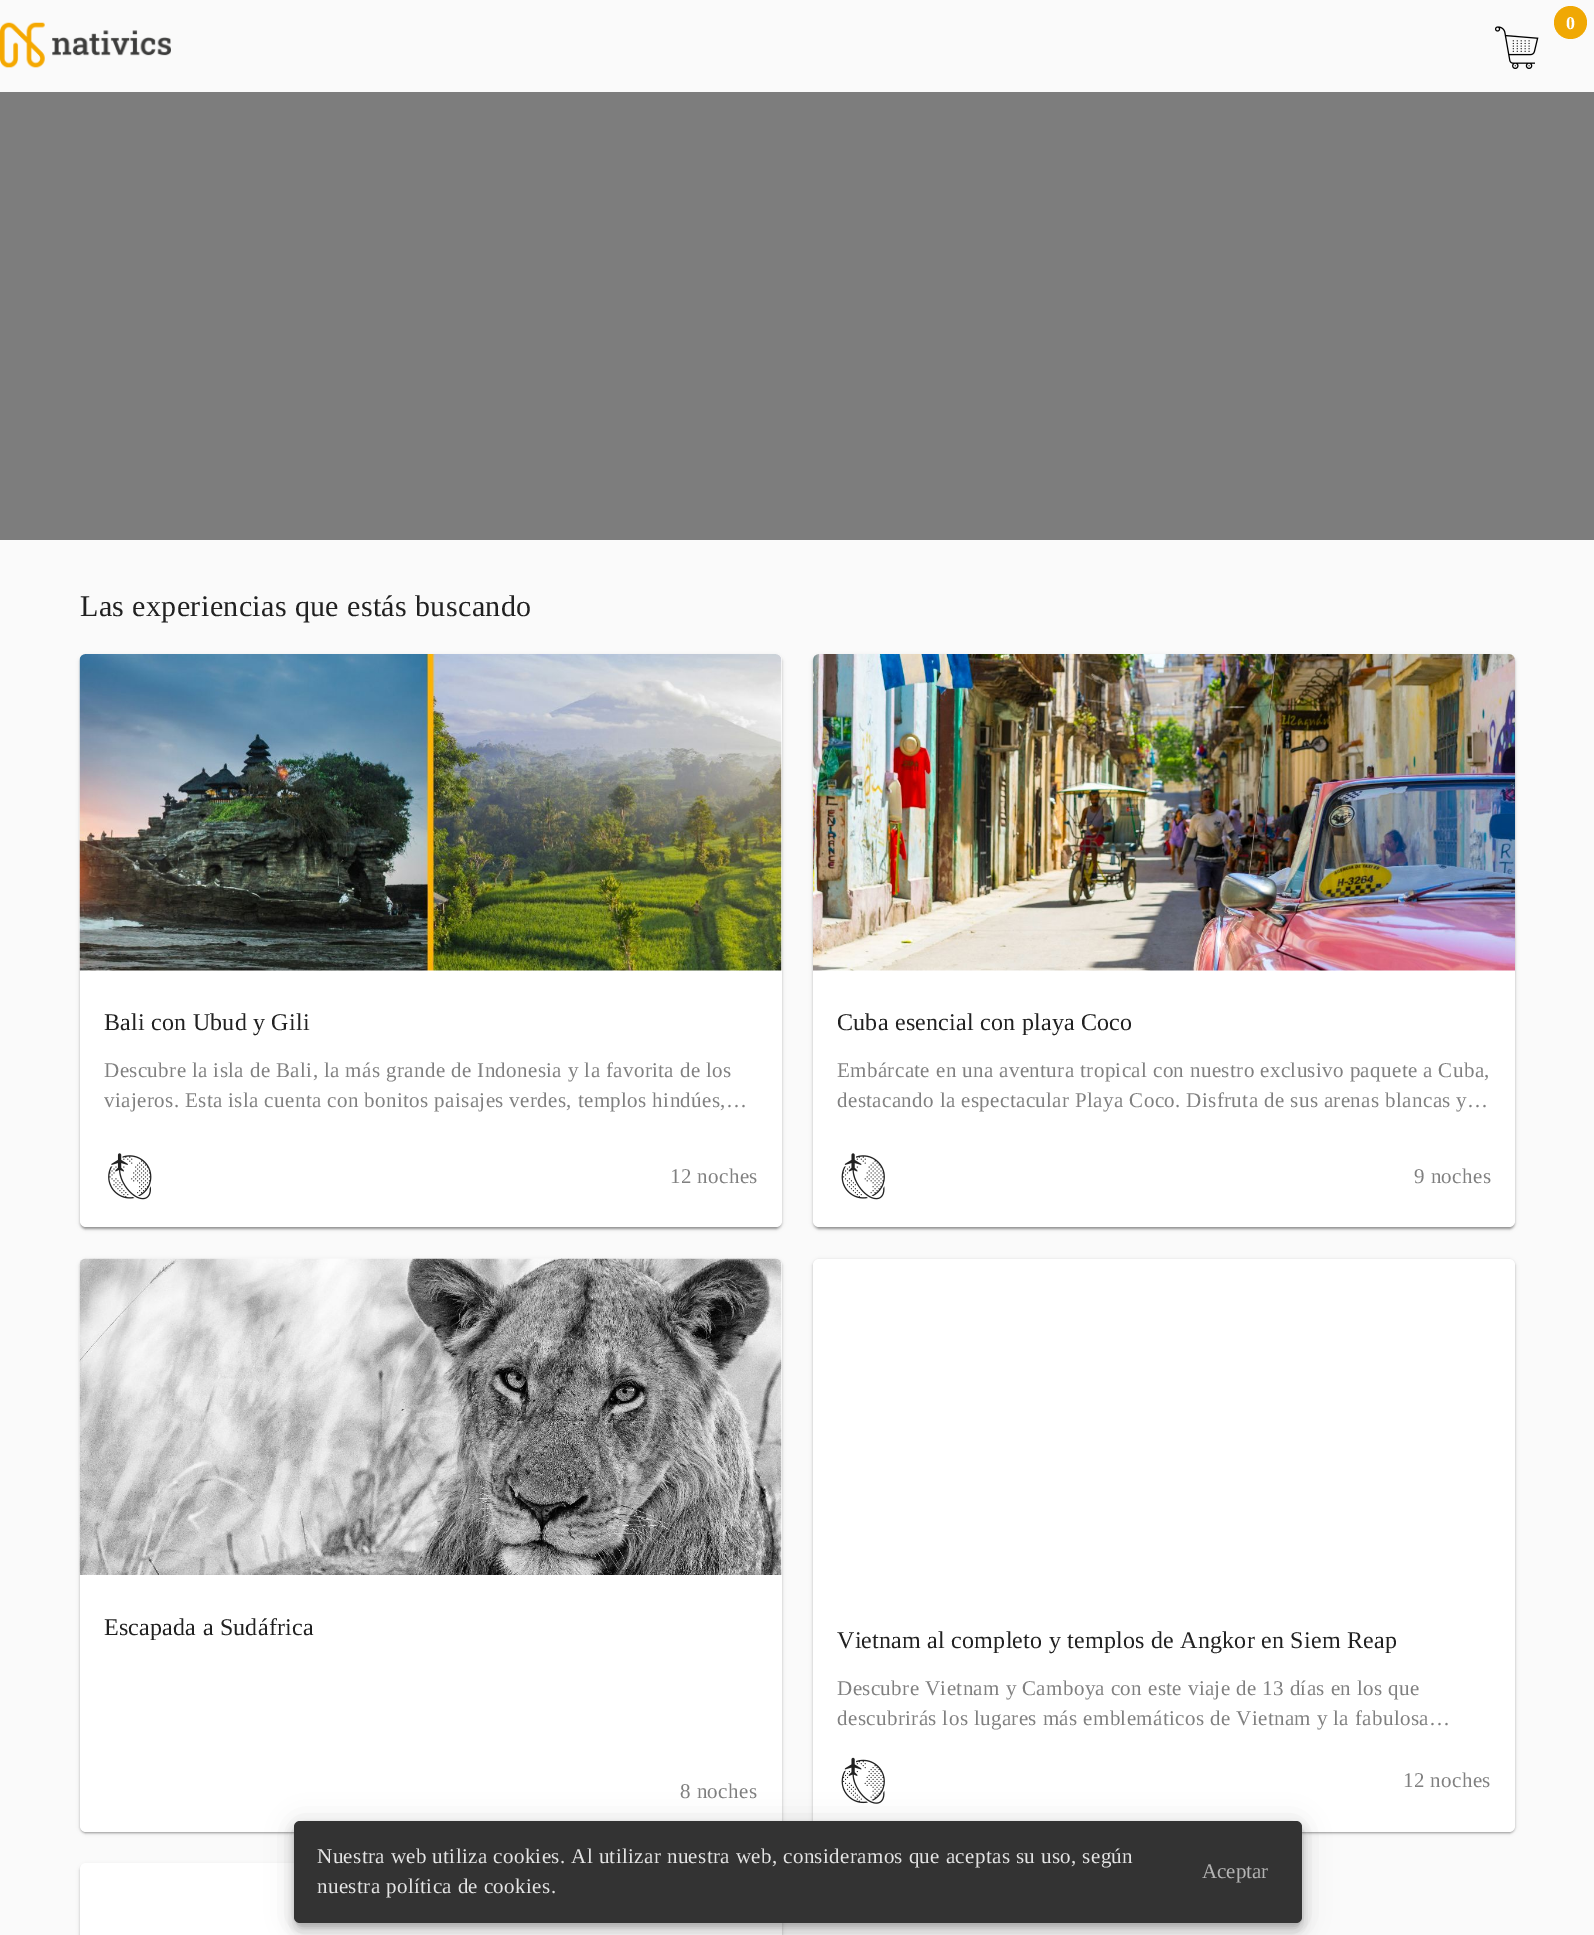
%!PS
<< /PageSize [1594 1935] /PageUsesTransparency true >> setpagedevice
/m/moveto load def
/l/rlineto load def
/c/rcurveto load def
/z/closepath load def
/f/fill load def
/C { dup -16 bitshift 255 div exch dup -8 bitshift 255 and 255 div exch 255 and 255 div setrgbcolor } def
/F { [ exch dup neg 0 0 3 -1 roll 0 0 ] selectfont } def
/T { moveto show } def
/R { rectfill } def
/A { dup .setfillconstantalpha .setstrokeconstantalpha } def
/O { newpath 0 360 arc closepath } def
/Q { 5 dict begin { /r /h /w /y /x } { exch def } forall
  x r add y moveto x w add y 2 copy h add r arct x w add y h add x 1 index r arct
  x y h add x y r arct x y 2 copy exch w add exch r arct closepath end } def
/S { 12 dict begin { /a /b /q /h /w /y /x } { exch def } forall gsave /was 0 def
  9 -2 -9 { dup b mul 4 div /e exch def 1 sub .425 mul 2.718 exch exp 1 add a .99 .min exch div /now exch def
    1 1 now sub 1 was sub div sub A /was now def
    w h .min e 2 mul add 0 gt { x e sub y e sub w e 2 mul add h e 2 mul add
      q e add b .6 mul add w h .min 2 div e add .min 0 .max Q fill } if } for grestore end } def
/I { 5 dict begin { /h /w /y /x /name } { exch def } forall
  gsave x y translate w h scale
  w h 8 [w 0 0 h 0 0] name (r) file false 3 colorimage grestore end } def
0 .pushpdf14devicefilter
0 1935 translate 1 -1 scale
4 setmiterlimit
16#FAFAFA C
0 0 1594 1935 R
(1.rgb) 0 22 171 46 I
16#F0A804 C
1570.5 22.5 16.5 O f
/LiberationSerif-Bold 18 F
16#FFFFFF C
(0) 1566 29 T
(2.rgb) 1495 26 44 43 I
16#7D7D7D C
0 92 1594 448 R
/LiberationSerif-Regular 30 F
16#212121 C
80 616 m .38 0 (Las experiencias que estás buscando) ashow
16#000000 C
80 656 702 573 6 2 .12 S
80 656 702 573 6 1 .14 S
81 659 699 570 5 1 .2 S
16#FFFFFF C
80 654 702 573 6 Q f
(3.rgb) 79 654 703 317 I
/LiberationSerif-Regular 24 F
16#212121 C
104 1030 m .22 0 (Bali con Ubud y Gili) ashow
/LiberationSerif-Regular 21 F
16#808080 C
104 1077 m .38 0 (Descubre la isla de Bali, la más grande de Indonesia y la favorita de los) ashow
104 1107 m .38 0 (viajeros. Esta isla cuenta con bonitos paisajes verdes, templos hindúes,…) ashow
(4.rgb) 108 1153 44 47 I
670 1183 m .38 0 (12 noches) ashow
16#000000 C
813 656 702 573 6 2 .12 S
813 656 702 573 6 1 .14 S
815 659 699 570 5 1 .2 S
16#FFFFFF C
813 654 702 573 6 Q f
(5.rgb) 813 654 702 317 I
/LiberationSerif-Regular 24 F
16#212121 C
837 1030 m .22 0 (Cuba esencial con playa Coco) ashow
/LiberationSerif-Regular 21 F
16#808080 C
837 1077 m .38 0 (Embárcate en una aventura tropical con nuestro exclusivo paquete a Cuba,) ashow
837 1107 m .38 0 (destacando la espectacular Playa Coco. Disfruta de sus arenas blancas y…) ashow
(6.rgb) 841 1153 44 47 I
1414 1183 m .38 0 (9 noches) ashow
16#000000 C
80 1260 702 573 6 2 .12 S
80 1260 702 573 6 1 .14 S
81 1263 699 570 5 1 .2 S
16#FFFFFF C
80 1259 702 573 6 Q f
(7.rgb) 79 1258 703 317 I
/LiberationSerif-Regular 24 F
16#212121 C
104 1635 m .22 0 (Escapada a Sudáfrica) ashow
/LiberationSerif-Regular 21 F
16#808080 C
680 1798 m .38 0 (8 noches) ashow
16#000000 C
813 1260 702 573 6 2 .12 S
813 1260 702 573 6 1 .14 S
815 1263 699 570 5 1 .2 S
16#FFFFFF C
813 1259 702 573 6 Q f
/LiberationSerif-Regular 24 F
16#212121 C
837 1648 m .22 0 (Vietnam al completo y templos de Angkor en Siem Reap) ashow
/LiberationSerif-Regular 21 F
16#808080 C
837 1695 m .38 0 (Descubre Vietnam y Camboya con este viaje de 13 días en los que) ashow
837 1725 m .38 0 (descubrirás los lugares más emblemáticos de Vietnam y la fabulosa…) ashow
(8.rgb) 841 1757 44 47 I
1403 1787 m .38 0 (12 noches) ashow
16#000000 C
80 1865 702 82 6 2 .12 S
80 1865 702 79 6 1 .14 S
16#FFFFFF C
86 1863 m 690 0 l 3.5 0 6 2.5 6 6 c 0 66 l -702 0 l 0 -66 l 0 -3.5 2.5 -6 6 -6 c z f
16#000000 C
294 1823 1008 102 6 13.5 .12 S
294 1830 1008 102 6 7.5 .14 S
296 1827 1005 99 5 4 .2 S
16#333333 C
294 1821 1008 102 6 Q f
16#E4E4E4 C
317 1863 m .38 0 (Nuestra web utiliza cookies. Al utilizar nuestra web, consideramos que aceptas su uso, según) ashow
317 1893 m .38 0 (nuestra política de cookies.) ashow
16#B3B3B3 C
(Aceptar) 1202 1878 T
.poppdf14devicefilter showpage
